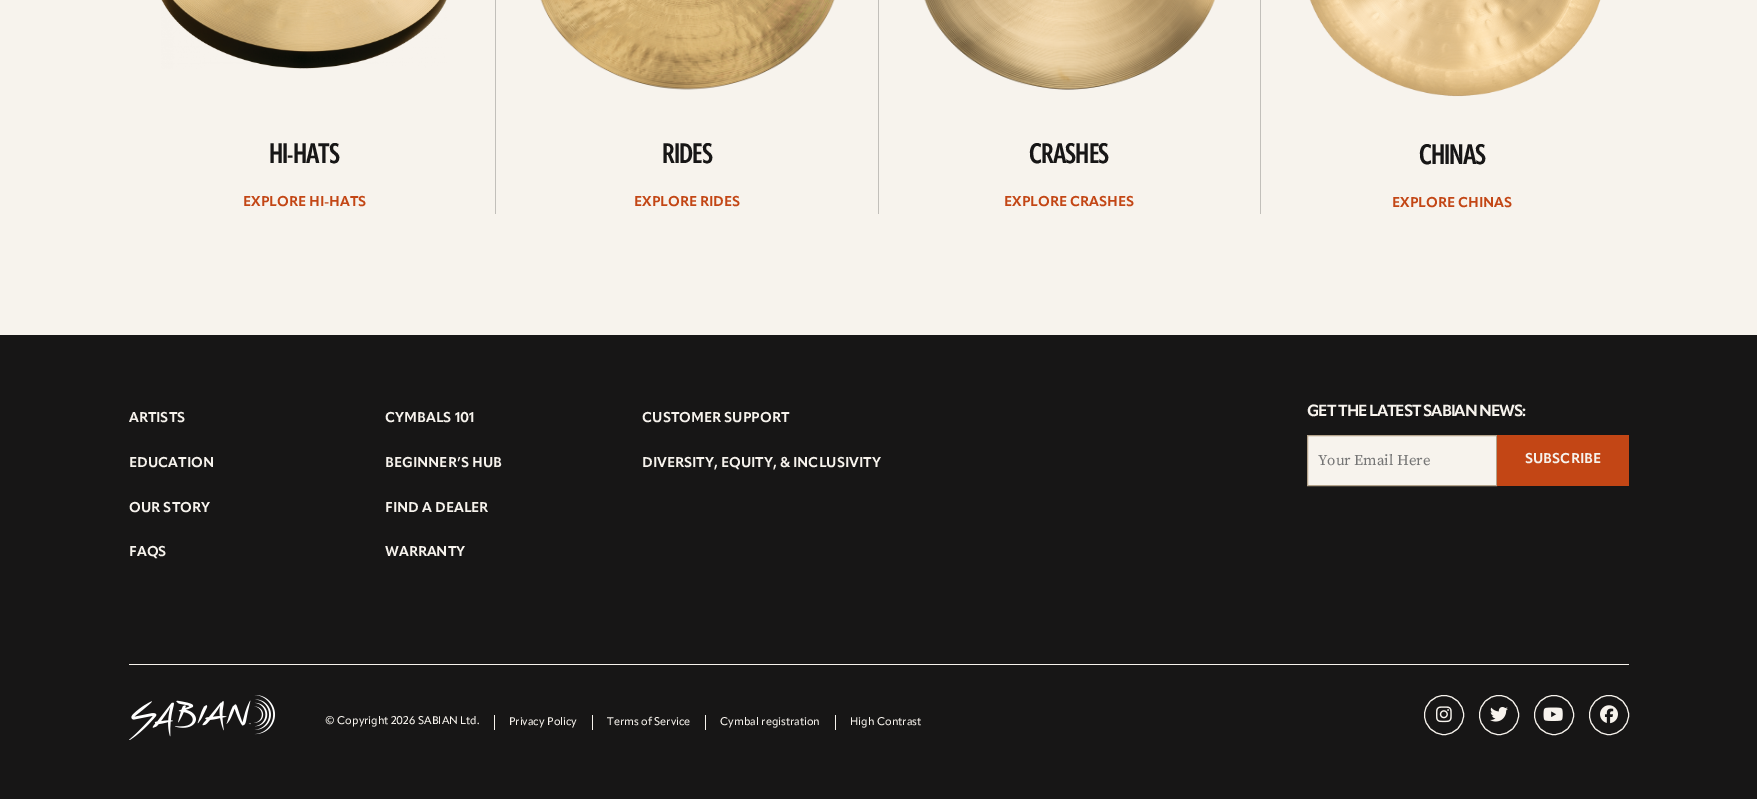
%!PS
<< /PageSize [1757 799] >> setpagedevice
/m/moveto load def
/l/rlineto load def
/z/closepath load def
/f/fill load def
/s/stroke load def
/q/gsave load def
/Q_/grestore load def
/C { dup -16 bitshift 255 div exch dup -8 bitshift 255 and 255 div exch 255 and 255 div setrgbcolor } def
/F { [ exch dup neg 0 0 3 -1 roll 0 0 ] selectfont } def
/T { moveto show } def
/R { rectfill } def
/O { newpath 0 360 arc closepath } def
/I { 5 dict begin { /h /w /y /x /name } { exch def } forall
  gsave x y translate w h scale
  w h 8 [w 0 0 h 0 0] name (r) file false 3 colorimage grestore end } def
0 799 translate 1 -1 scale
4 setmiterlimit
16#F7F3ED C
0 0 1757 799 R
16#C2BFBA C
495 0 1 214 R
(1.rgb) 161 0 286 69 I
/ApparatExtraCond-Bold 28 F
16#171616 C
269 163 m -1 0 (HI-HATS) ashow
/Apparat-Bold 14 F
16#C34615 C
(EXPLORE HI-HATS) 243 206 T
16#C2BFBA C
878 0 1 214 R
(2.rgb) 540 0 295 90 I
/ApparatExtraCond-Bold 28 F
16#171616 C
662 163 m -1 0 (RIDES) ashow
/Apparat-Bold 14 F
16#C34615 C
(EXPLORE RIDES) 634 206 T
16#C2BFBA C
1260 0 1 214 R
(3.rgb) 924 0 291 90 I
/ApparatExtraCond-Bold 28 F
16#171616 C
1029 163 m -1 0 (CRASHES) ashow
/Apparat-Bold 14 F
16#C34615 C
(EXPLORE CRASHES) 1004 206 T
(4.rgb) 1309 0 292 97 I
/ApparatExtraCond-Bold 28 F
16#171616 C
1419 164 m -1 0 (CHINAS) ashow
/Apparat-Bold 14 F
16#C34615 C
(EXPLORE CHINAS) 1392 207 T
16#171616 C
0 335 1757 464 R
16#F7F3ED C
129 664 1500 1 R
(ARTISTS) 129 422 T
(CYMBALS 101) 385 422 T
(CUSTOMER SUPPORT) 642 422 T
(EDUCATION) 129 467 T
(BEGINNER’S HUB) 385 467 T
(DIVERSITY, EQUITY, & INCLUSIVITY) 642 467 T
(OUR STORY) 129 512 T
(FIND A DEALER) 385 512 T
(FAQS) 129 556 T
(WARRANTY) 385 556 T
/Apparat-Bold 16 F
1307 416 m -1 0 (GET THE LATEST SABIAN NEWS:) ashow
1307.5 435.5 m 189 0 l 0 50 l -189 0 l z q f Q_
16#B4A38B C
s
/SourceSerifPro-Regular 15 F
16#757575 C
(Your Email Here) 1318 465 T
16#C34615 C
1497 435 132 51 R
/Apparat-Bold 14 F
16#F7F3ED C
(SUBSCRIBE) 1525 463 T
(5.rgb) 129 695 146 45 I
/Apparat-Medium 11 F
(© Copyright 2026 SABIAN Ltd.) 325 724 T
494 715 1 15 R
(Privacy Policy) 509 725 T
592 715 1 15 R
(Terms of Service) 607 725 T
705 715 1 15 R
(Cymbal registration) 720 725 T
835 715 1 15 R
(High Contrast) 850 725 T
1444 715 19.5 O s
(6.rgb) 1436 706 16 17 I
1499 715 19.5 O s
(7.rgb) 1490 707 18 15 I
1554 715 19.5 O s
(8.rgb) 1543 707 20 14 I
1609 715 19.5 O s
(9.rgb) 1600 705 18 19 I
showpage
